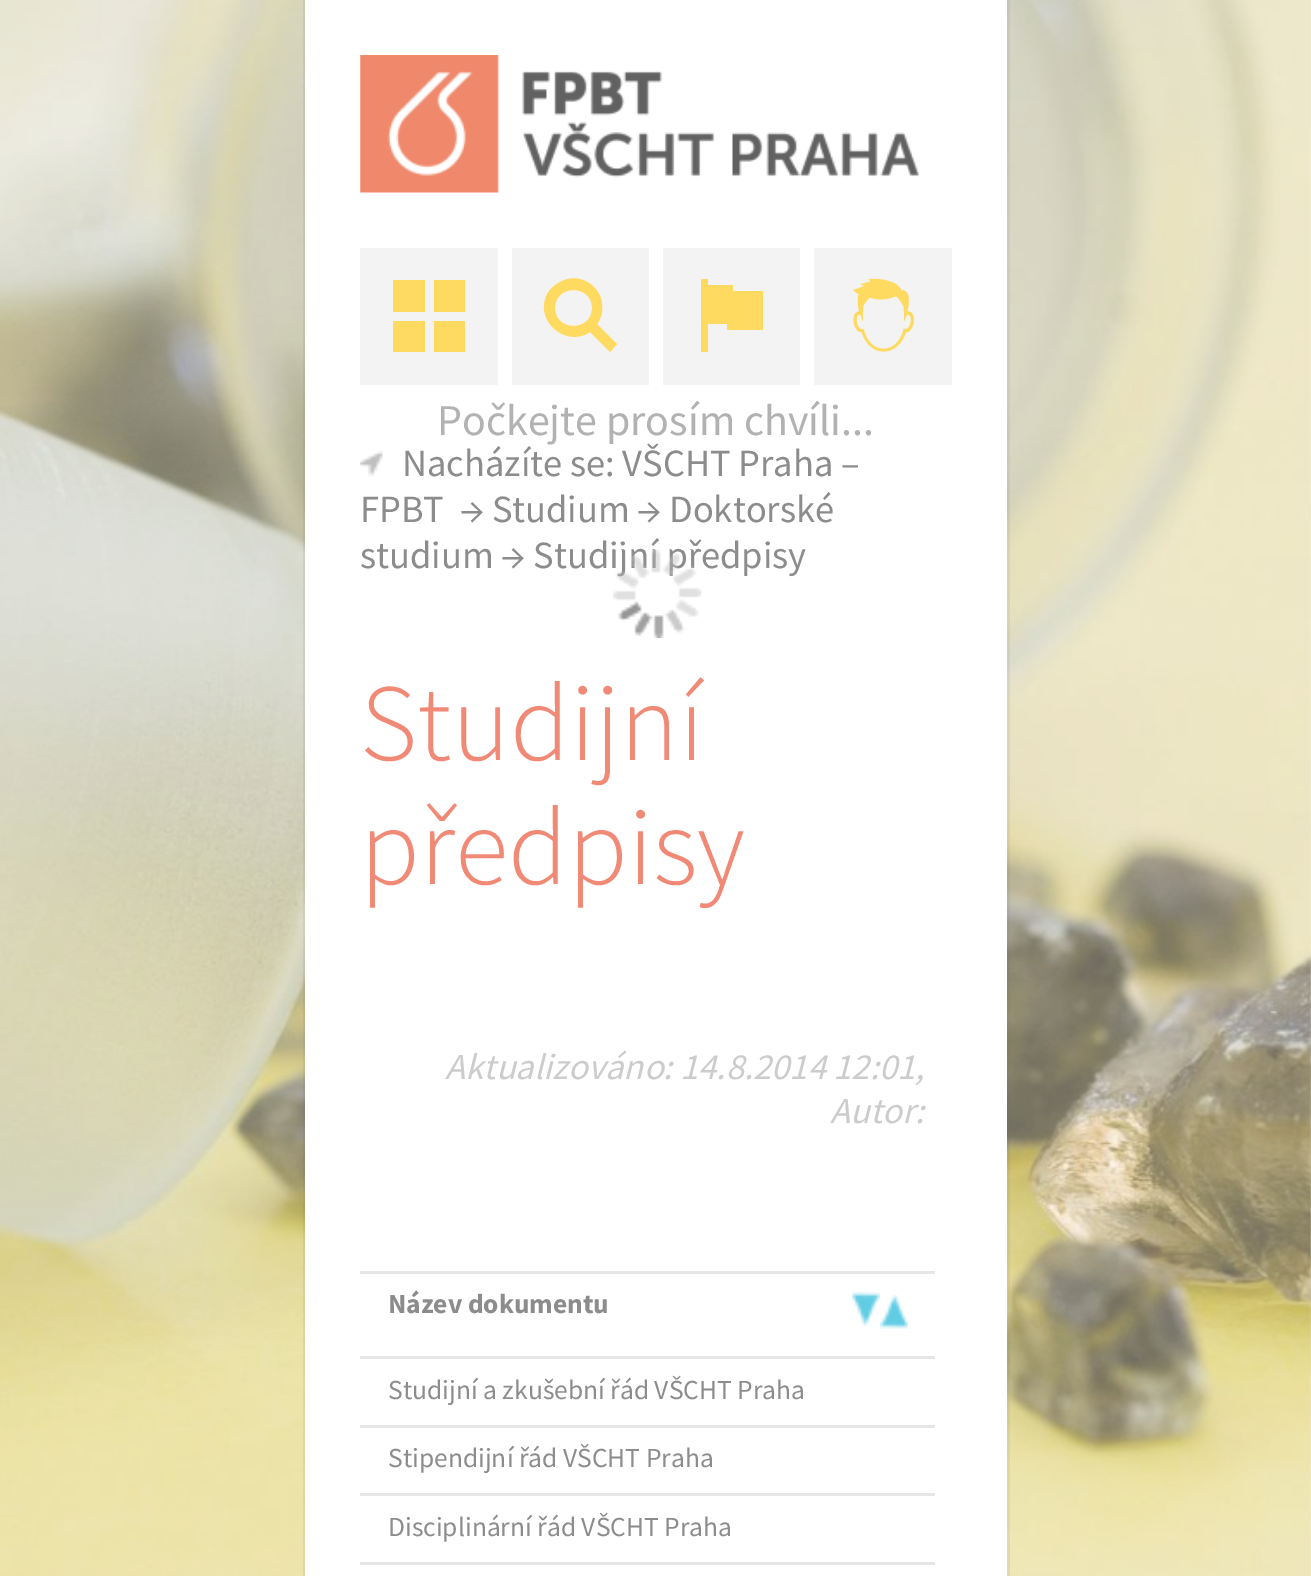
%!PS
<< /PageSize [1311 1576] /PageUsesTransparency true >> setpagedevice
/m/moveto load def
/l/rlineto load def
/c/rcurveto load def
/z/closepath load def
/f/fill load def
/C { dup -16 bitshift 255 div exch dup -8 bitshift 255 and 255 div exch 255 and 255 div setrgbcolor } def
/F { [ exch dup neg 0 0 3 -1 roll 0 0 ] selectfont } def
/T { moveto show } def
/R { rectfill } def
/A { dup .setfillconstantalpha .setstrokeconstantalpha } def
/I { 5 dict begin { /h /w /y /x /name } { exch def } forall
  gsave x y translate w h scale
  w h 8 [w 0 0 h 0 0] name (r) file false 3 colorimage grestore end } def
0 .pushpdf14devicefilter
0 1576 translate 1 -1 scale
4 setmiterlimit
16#FFFFFF C
0 0 1311 1576 R
(1.rgb) 0 0 1311 1576 I
305 0 702 1576 R
/SourceSansPro-Regular 38.5 F
16#8C8C8C C
(studium → Studijní předpisy) 360 568 T
(2.rgb) 613 550 89 88 I
/SourceSansPro-Regular 44 F
16#B2B2B2 C
(Počkejte prosím chvíli...) 437 435 T
0.1 A
16#616161 C
1007 0 3 1576 R
303 0 2 1576 R
1 A
(3.rgb) 360 55 559 138 I
16#F3F3F3 C
360 248 138 137 R
16#FFDA61 C
393 280 m 0 32 l 32 0 l 0 -32 l z 434 280 m 0 32 l 31 0 l 0 -32 l z 393 321 m 0 31 l 32 0 l 0 -31 l z 434 321 m 0 31 l 31 0 l 0 -31 l z f
16#F3F3F3 C
512 248 137 137 R
16#FFDA61 C
617 344 m -7 8 l -20 -20 l -25 17 -59 -14 -41 -41 c 5 -6 11 -10 19 -12 c 9 -2 19 1 26 8 c 10 10 11 26 3 37 c z 555 308 m 0 24 37 24 37 0 c 0 -24 -37 -24 -37 0 c z f
16#F3F3F3 C
663 248 137 137 R
16#FFDA61 C
733 291 m 30 0 l 0 39 l -36 0 l 0 -6 l -19 0 l 0 28 l -7 0 l 0 -73 l 7 0 l 0 6 l 25 0 l z f
16#F3F3F3 C
814 248 138 137 R
(4.rgb) 853 278 61 74 I
(5.rgb) 360 450 24 27 I
/SourceSansPro-Regular 38.5 F
16#8C8C8C C
(Nacházíte se: VŠCHT Praha –) 402 476 T
(FPBT) 360 522 T
(→ Studium → Doktorské) 460 522 T
/SourceSansPro-Light 110 F
16#F08976 C
(Studijní) 360 760 T
(předpisy) 360 884 T
/SourceSansPro-Italic 36.7 F
16#CCCCCC C
(Aktualizováno: 14.8.2014 12:01,) 445 1079 T
(Autor:) 830 1123 T
16#E6E6E6 C
360 1271 575 3 R
360 1356 575 3 R
/SourceSansPro-Bold 27.5 F
16#8C8C8C C
(Název dokumentu) 388 1313 T
(6.rgb) 852 1291 28 36 I
(7.rgb) 880 1294 28 35 I
16#E6E6E6 C
360 1425 575 3 R
/SourceSansPro-Regular 27.5 F
16#8C8C8C C
(Studijní a zkušební řád VŠCHT Praha) 388 1399 T
16#E6E6E6 C
360 1493 575 3 R
16#8C8C8C C
(Stipendijní řád VŠCHT Praha) 388 1467 T
16#E6E6E6 C
360 1562 575 3 R
16#8C8C8C C
(Disciplinární řád VŠCHT Praha) 388 1536 T
.poppdf14devicefilter showpage
